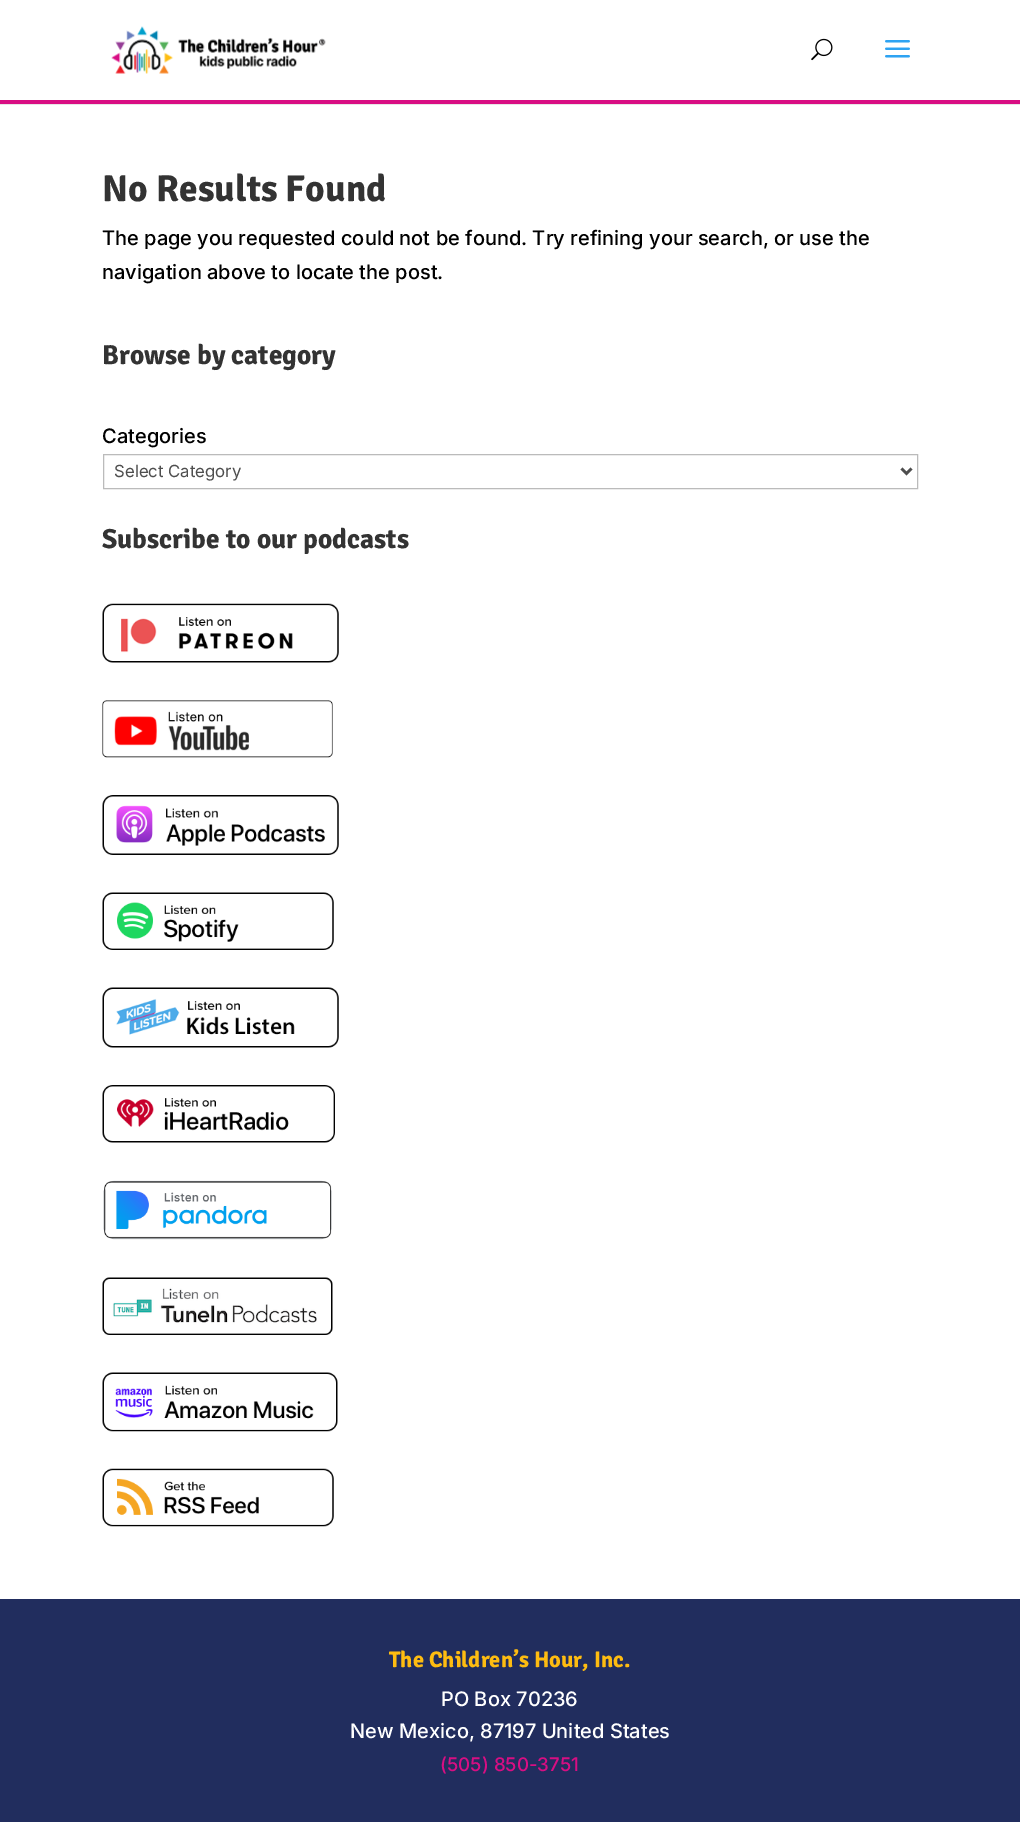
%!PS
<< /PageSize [1020 1822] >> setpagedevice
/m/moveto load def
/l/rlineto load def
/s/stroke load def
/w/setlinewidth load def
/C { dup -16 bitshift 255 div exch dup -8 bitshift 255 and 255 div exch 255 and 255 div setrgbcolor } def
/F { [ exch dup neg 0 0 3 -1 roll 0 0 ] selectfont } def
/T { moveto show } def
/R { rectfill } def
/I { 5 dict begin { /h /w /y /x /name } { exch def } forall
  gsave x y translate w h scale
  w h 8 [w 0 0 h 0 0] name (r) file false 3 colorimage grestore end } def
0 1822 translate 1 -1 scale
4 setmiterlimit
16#FFFFFF C
0 0 1020 1822 R
16#E6E6E6 C
0 104 1020 1 R
16#D80E83 C
0 100 1020 4 R
(1.rgb) 111 26 215 48 I
(2.rgb) 811 38 22 23 I
(3.rgb) 885 40 25 18 I
/Signika-Bold 37.5 F
16#333333 C
(No Results Found) 102 201 T
/Inter-Medium 20 F
16#000000 C
(The page you requested could not be found. Try refining your search, or use the) 102 245 T
(navigation above to locate the post.) 102 279 T
/Signika-Bold 27.5 F
16#333333 C
(Browse by category) 102 364 T
/Inter-Medium 20 F
16#000000 C
(Categories) 102 443 T
16#BBBBBB C
103.5 454.5 814 34 rectstroke
16#4E4E4E C
2.5 w
901.5 468.5 m 5 5 l 5 -5 l s
/Inter-Regular 16.75 F
(Select Category) 114 477 T
/Signika-Bold 27.5 F
16#333333 C
(Subscribe to our podcasts) 102 548 T
(4.rgb) 102 603 237 60 I
(5.rgb) 102 700 231 58 I
(6.rgb) 102 795 237 60 I
(7.rgb) 102 892 232 58 I
(8.rgb) 102 987 237 61 I
(9.rgb) 102 1085 233 58 I
(10.rgb) 103 1180 229 60 I
(11.rgb) 102 1277 231 58 I
(12.rgb) 102 1372 236 60 I
(13.rgb) 102 1468 232 59 I
16#212D5E C
0 1599 1020 223 R
/Signika-Bold 22.5 F
16#FEBC11 C
(The Children’s Hour, Inc.) 389 1667 T
/Inter-Medium 20 F
16#FFFFFF C
(PO Box 70236) 441 1706 T
(New Mexico, 87197 United States) 350 1738 T
/Inter-Medium 18.75 F
16#D80E83 C
(\(505\) 850-3751) 440 1771 T
showpage
